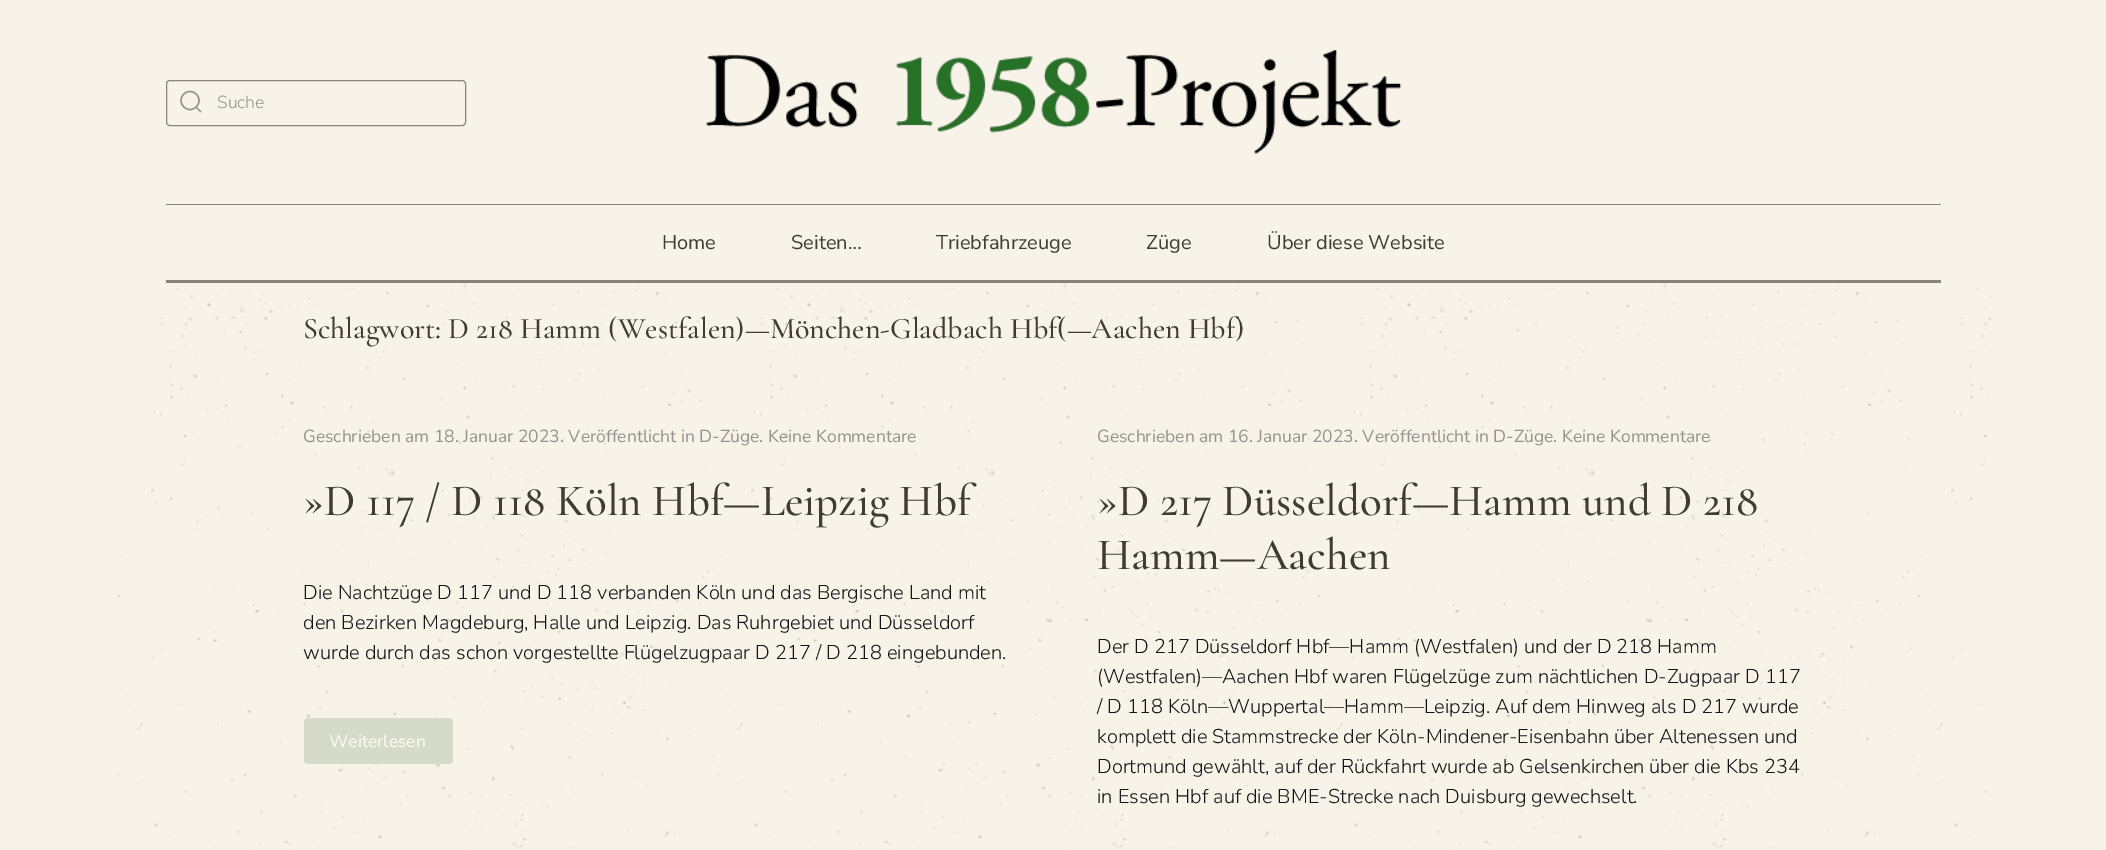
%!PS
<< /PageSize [2106 850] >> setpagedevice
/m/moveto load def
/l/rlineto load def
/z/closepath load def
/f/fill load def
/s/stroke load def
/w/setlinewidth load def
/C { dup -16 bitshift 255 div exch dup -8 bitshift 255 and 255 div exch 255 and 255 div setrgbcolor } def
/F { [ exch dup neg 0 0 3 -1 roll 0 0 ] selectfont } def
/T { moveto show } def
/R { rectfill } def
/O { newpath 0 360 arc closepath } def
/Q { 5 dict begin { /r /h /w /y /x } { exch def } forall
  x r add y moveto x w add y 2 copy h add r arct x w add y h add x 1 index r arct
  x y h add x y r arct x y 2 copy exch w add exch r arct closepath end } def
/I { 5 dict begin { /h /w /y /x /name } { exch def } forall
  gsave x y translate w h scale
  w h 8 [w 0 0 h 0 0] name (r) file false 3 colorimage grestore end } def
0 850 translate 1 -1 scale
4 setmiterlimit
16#F7F3E9 C
0 0 2106 850 R
16#88837F C
166.5 80.5 299 45 3.5 Q s
16#98928E C
1.4 w
190 100.5 9 O s
196 107 m 5 5 l z s
/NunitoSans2-ExtraLight 17.5 F
(Suche) 217 108 T
(1.rgb) 706 50 696 104 I
16#88837F C
166 204 1775 1 R
166 280 1775 3 R
/NunitoSans-ExtraLight 20 F
16#403C32 C
(Home) 662 249 T
(Seiten…) 791 249 T
(Triebfahrzeuge) 936 249 T
(Züge) 1146 249 T
(Über diese Website) 1267 249 T
(2.rgb) 117 283 1874 567 I
/CormorantGaramond-Light 30 F
(Schlagwort: D 218 Hamm \(Westfalen\)—Mönchen-Gladbach Hbf\(—Aachen Hbf\)) 303 338 T
/NunitoSans-ExtraLight 17.5 F
16#98928E C
(Geschrieben am 18. Januar 2023. Veröffentlicht in D-Züge. Keine Kommentare) 303 442 T
/CormorantGaramond-Light 45 F
16#403C32 C
(»D 117 / D 118 Köln Hbf—Leipzig Hbf) 303 515 T
/NunitoSans2-ExtraLight 20 F
16#141414 C
(Die Nachtzüge D 117 und D 118 verbanden Köln und das Bergische Land mit) 303 599 T
(den Bezirken Magdeburg, Halle und Leipzig. Das Ruhrgebiet und Düsseldorf) 303 629 T
(wurde durch das schon vorgestellte Flügelzugpaar D 217 / D 218 eingebunden.) 303 659 T
16#D6DAC9 C
304 718 149 46 4 Q f
/NunitoSans-ExtraLight 17.5 F
16#FFFCF5 C
(Weiterlesen) 329 747 T
16#98928E C
(Geschrieben am 16. Januar 2023. Veröffentlicht in D-Züge. Keine Kommentare) 1097 442 T
/CormorantGaramond-Light 45 F
16#403C32 C
(»D 217 Düsseldorf—Hamm und D 218) 1097 515 T
(Hamm—Aachen) 1097 569 T
/NunitoSans2-ExtraLight 20 F
16#141414 C
(Der D 217 Düsseldorf Hbf—Hamm \(Westfalen\) und der D 218 Hamm) 1097 653 T
(\(Westfalen\)—Aachen Hbf waren Flügelzüge zum nächtlichen D-Zugpaar D 117) 1097 683 T
(/ D 118 Köln—Wuppertal—Hamm—Leipzig. Auf dem Hinweg als D 217 wurde) 1097 713 T
(komplett die Stammstrecke der Köln-Mindener-Eisenbahn über Altenessen und) 1097 743 T
(Dortmund gewählt, auf der Rückfahrt wurde ab Gelsenkirchen über die Kbs 234) 1097 773 T
(in Essen Hbf auf die BME-Strecke nach Duisburg gewechselt.) 1097 803 T
showpage
